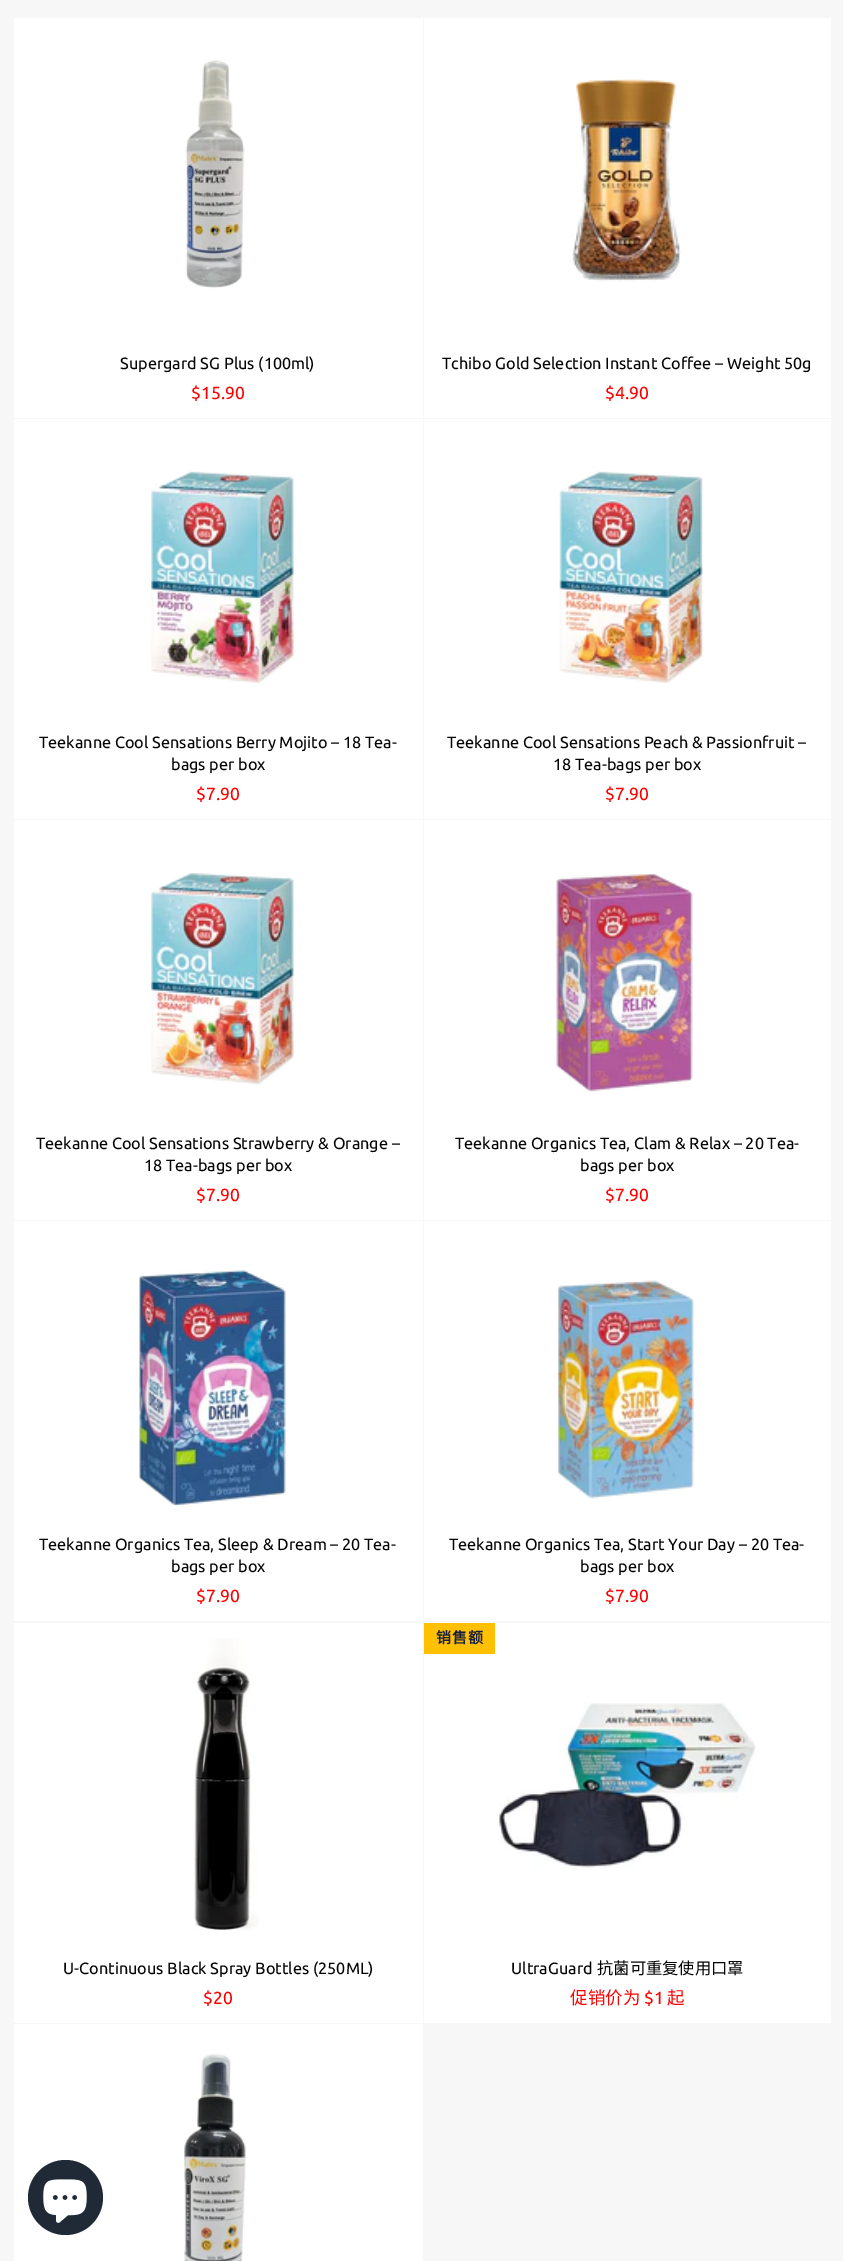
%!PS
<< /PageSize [843 2261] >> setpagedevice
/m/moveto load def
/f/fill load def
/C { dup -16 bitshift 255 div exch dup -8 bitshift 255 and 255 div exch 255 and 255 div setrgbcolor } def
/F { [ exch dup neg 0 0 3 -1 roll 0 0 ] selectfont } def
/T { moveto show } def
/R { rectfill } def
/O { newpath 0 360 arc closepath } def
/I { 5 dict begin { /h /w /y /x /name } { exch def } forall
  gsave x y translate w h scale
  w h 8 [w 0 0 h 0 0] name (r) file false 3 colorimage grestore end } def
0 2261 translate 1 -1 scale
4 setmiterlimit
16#F7F7F7 C
0 0 843 2261 R
16#FFFFFF C
14 18 409 400 R
(1.rgb) 185 60 60 229 I
/Ubuntu-Regular 16.25 F
16#030303 C
(Supergard SG Plus \(100ml\)) 120 369 T
/Ubuntu-Regular 17.5 F
16#FF0000 C
($15.90) 191 399 T
16#FFFFFF C
424 18 407 400 R
(2.rgb) 572 79 109 203 I
/Ubuntu-Regular 16.25 F
16#030303 C
(Tchibo Gold Selection Instant Coffee – Weight 50g) 442 369 T
/Ubuntu-Regular 17.5 F
16#FF0000 C
($4.90) 605 399 T
16#FFFFFF C
14 419 409 400 R
(3.rgb) 151 471 143 212 I
/Ubuntu-Regular 16.25 F
16#030303 C
(Teekanne Cool Sensations Berry Mojito – 18 Tea-) 39 748 T
(bags per box) 171 770 T
/Ubuntu-Regular 17.5 F
16#FF0000 C
($7.90) 196 800 T
16#FFFFFF C
424 419 407 400 R
(4.rgb) 559 471 144 212 I
/Ubuntu-Regular 16.25 F
16#030303 C
(Teekanne Cool Sensations Peach & Passionfruit –) 447 748 T
(18 Tea-bags per box) 553 770 T
/Ubuntu-Regular 17.5 F
16#FF0000 C
($7.90) 605 800 T
16#FFFFFF C
14 820 409 400 R
(5.rgb) 151 873 143 212 I
/Ubuntu-Regular 16.25 F
16#030303 C
(Teekanne Cool Sensations Strawberry & Orange –) 36 1149 T
(18 Tea-bags per box) 144 1171 T
/Ubuntu-Regular 17.5 F
16#FF0000 C
($7.90) 196 1201 T
16#FFFFFF C
424 820 407 400 R
(6.rgb) 556 874 137 218 I
/Ubuntu-Regular 16.25 F
16#030303 C
(Teekanne Organics Tea, Clam & Relax – 20 Tea-) 455 1149 T
(bags per box) 580 1171 T
/Ubuntu-Regular 17.5 F
16#FF0000 C
($7.90) 605 1201 T
16#FFFFFF C
14 1221 409 400 R
(7.rgb) 139 1270 147 236 I
/Ubuntu-Regular 16.25 F
16#030303 C
(Teekanne Organics Tea, Sleep & Dream – 20 Tea-) 39 1550 T
(bags per box) 171 1572 T
/Ubuntu-Regular 17.5 F
16#FF0000 C
($7.90) 196 1602 T
16#FFFFFF C
424 1221 407 400 R
(8.rgb) 558 1280 136 219 I
/Ubuntu-Regular 16.25 F
16#030303 C
(Teekanne Organics Tea, Start Your Day – 20 Tea-) 449 1550 T
(bags per box) 580 1572 T
/Ubuntu-Regular 17.5 F
16#FF0000 C
($7.90) 605 1602 T
16#FFFFFF C
14 1623 409 400 R
(9.rgb) 194 1638 65 293 I
/Ubuntu-Regular 16.25 F
16#030303 C
(U-Continuous Black Spray Bottles \(250ML\)) 63 1974 T
/Ubuntu-Regular 17.5 F
16#FF0000 C
($20) 203 2004 T
16#FFFFFF C
424 1623 407 400 R
16#FFC001 C
424 1623 71 31 R
/NotoSansCJKSC-Bold 15 F
16#151E3F C
436 1643 m 1 0 (销售额) ashow
(10.rgb) 499 1703 257 166 I
/Ubuntu-Regular 16.25 F
16#030303 C
(UltraGuard) 511 1974 T
/NotoSansCJKSC-Regular 16.25 F
(抗菌可重复使用口罩) 597 1974 T
/NotoSansCJKSC-Regular 17.5 F
16#FF0000 C
(促销价为) 570 2004 T
/Ubuntu-Regular 17.5 F
($1) 644 2004 T
/NotoSansCJKSC-Regular 17.5 F
(起) 667 2004 T
16#FFFFFF C
14 2024 409 237 R
(11.rgb) 184 2053 62 208 I
16#202A36 C
65.5 2197.5 37.5 O f
(12.rgb) 43 2179 44 44 I
showpage
